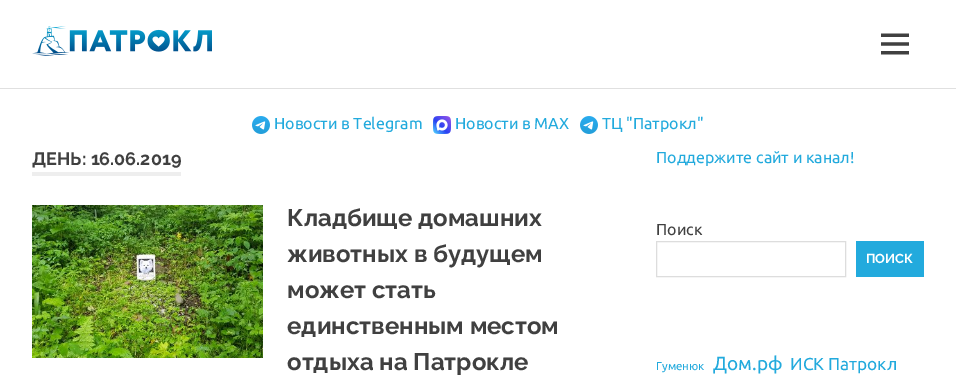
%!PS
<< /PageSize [956 384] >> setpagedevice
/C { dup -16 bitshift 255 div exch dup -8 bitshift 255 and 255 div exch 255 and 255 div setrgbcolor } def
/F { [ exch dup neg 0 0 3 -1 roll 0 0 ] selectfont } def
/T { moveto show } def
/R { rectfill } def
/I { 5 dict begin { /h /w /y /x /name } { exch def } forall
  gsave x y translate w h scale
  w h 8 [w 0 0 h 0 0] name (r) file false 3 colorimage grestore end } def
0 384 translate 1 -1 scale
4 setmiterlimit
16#FFFFFF C
0 0 956 384 R
16#E0E0E0 C
0 88 956 1 R
(1.rgb) 32 26 180 30 I
(2.rgb) 881 33 28 22 I
(3.rgb) 252 116 18 18 I
/Ubuntu-Regular 16 F
16#22AADD C
(Новости в Telegram) 274 129 T
(4.rgb) 433 116 18 18 I
(Новости в MAX) 455 129 T
(3.rgb) 580 116 18 18 I
(ТЦ "Патрокл") 602 129 T
16#EEEEEE C
32 172 149 4 R
/Raleway-Bold 18 F
16#404040 C
(ДЕНЬ: 16.06.2019) 32 165 T
(5.rgb) 32 205 231 153 I
/Raleway-Bold 24 F
(Кладбище домашних) 287 226 T
(животных в будущем) 287 262 T
(может стать) 287 298 T
(единственным местом) 287 334 T
(отдыха на Патрокле) 287 370 T
/Ubuntu-Regular 16 F
16#22AADD C
(Поддержите сайт и канал!) 656 163 T
16#404040 C
(Поиск) 656 235 T
16#DDDDDD C
656.5 241.5 189 35 rectstroke
16#22AADD C
856 241 68 36 R
/Raleway-Bold 13 F
16#FFFFFF C
(ПОИСК) 866 263 T
/Ubuntu-Regular 11.5 F
16#22AADD C
(Гуменюк) 656 370 T
/Ubuntu-Regular 19 F
(Дом.рф) 713 370 T
/Ubuntu-Regular 17.25 F
(ИСК Патрокл) 790 370 T
showpage
